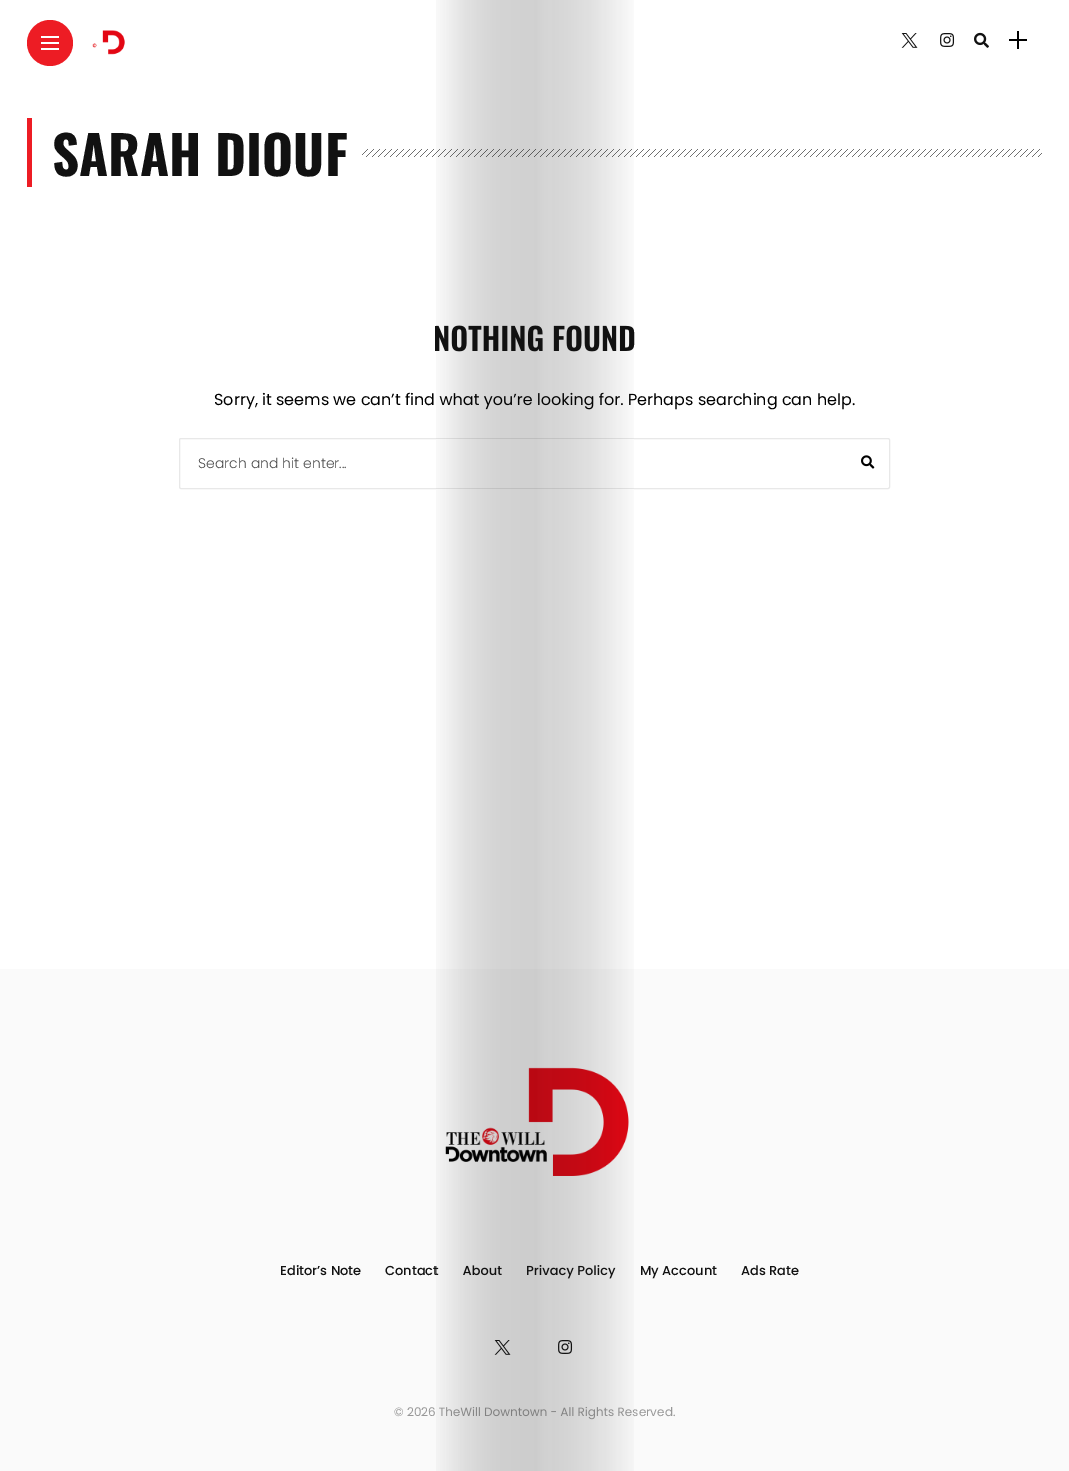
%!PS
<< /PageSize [1069 1471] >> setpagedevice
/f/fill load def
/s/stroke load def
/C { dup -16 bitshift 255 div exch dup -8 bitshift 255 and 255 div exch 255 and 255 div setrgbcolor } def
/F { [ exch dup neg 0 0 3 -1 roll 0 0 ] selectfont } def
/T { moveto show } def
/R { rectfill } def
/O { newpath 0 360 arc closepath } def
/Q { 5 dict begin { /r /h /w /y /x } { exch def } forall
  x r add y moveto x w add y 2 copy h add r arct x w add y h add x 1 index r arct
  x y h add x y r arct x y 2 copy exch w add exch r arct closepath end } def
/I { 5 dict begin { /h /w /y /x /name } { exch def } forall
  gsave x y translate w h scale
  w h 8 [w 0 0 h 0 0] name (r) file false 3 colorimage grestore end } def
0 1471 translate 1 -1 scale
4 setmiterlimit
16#FFFFFF C
0 0 1069 1471 R
16#ED1C24 C
50 43 23 O f
16#FFFFFF C
41 36 18 2 R
41 42 18 2 R
41 48 18 2 R
(1.rgb) 92 30 33 25 I
(2.rgb) 901 33 17 15 I
(3.rgb) 940 33 15 14 I
(4.rgb) 974 32 15 16 I
16#000000 C
1009 39 18 2 R
1017 31 2 18 R
(6.rgb) 362 149 680 8 I
/Oswald-SemiBold 31 F
16#111111 C
(NOTHING FOUND) 433 351 T
/Poppins-Regular 16 F
16#000000 C
(Sorry, it seems we can’t find what you’re looking for. Perhaps searching can help.) 214 405 T
16#E8E8E8 C
179.5 438.5 710 50 1.5 Q s
16#FAFAFA C
0 969 1069 502 R
(8.rgb) 445 1067 184 109 I
/Poppins-Medium 13 F
16#111111 C
(Contact) 385 1275 T
(About) 463 1275 T
(Privacy Policy) 526 1275 T
(9.rgb) 494 1340 17 15 I
(10.rgb) 558 1340 15 14 I
/Poppins-Regular 12 F
16#989898 C
(© 2026 TheWill Downtown - All Rights Reserved.) 394 1416 T
(5.rgb) 436 0 198 1471 I
16#ED1C24 C
27 118 5 69 R
/Oswald-Bold 53 F
16#111111 C
(SARAH DIOUF) 52 176 T
/Poppins-Light 14 F
16#4D4D4D C
(Search and hit enter...) 198 468 T
(7.rgb) 861 455 14 14 I
/Poppins-Medium 13 F
16#111111 C
(Editor’s Note) 280 1275 T
(My Account) 640 1275 T
(Ads Rate) 741 1275 T
showpage
